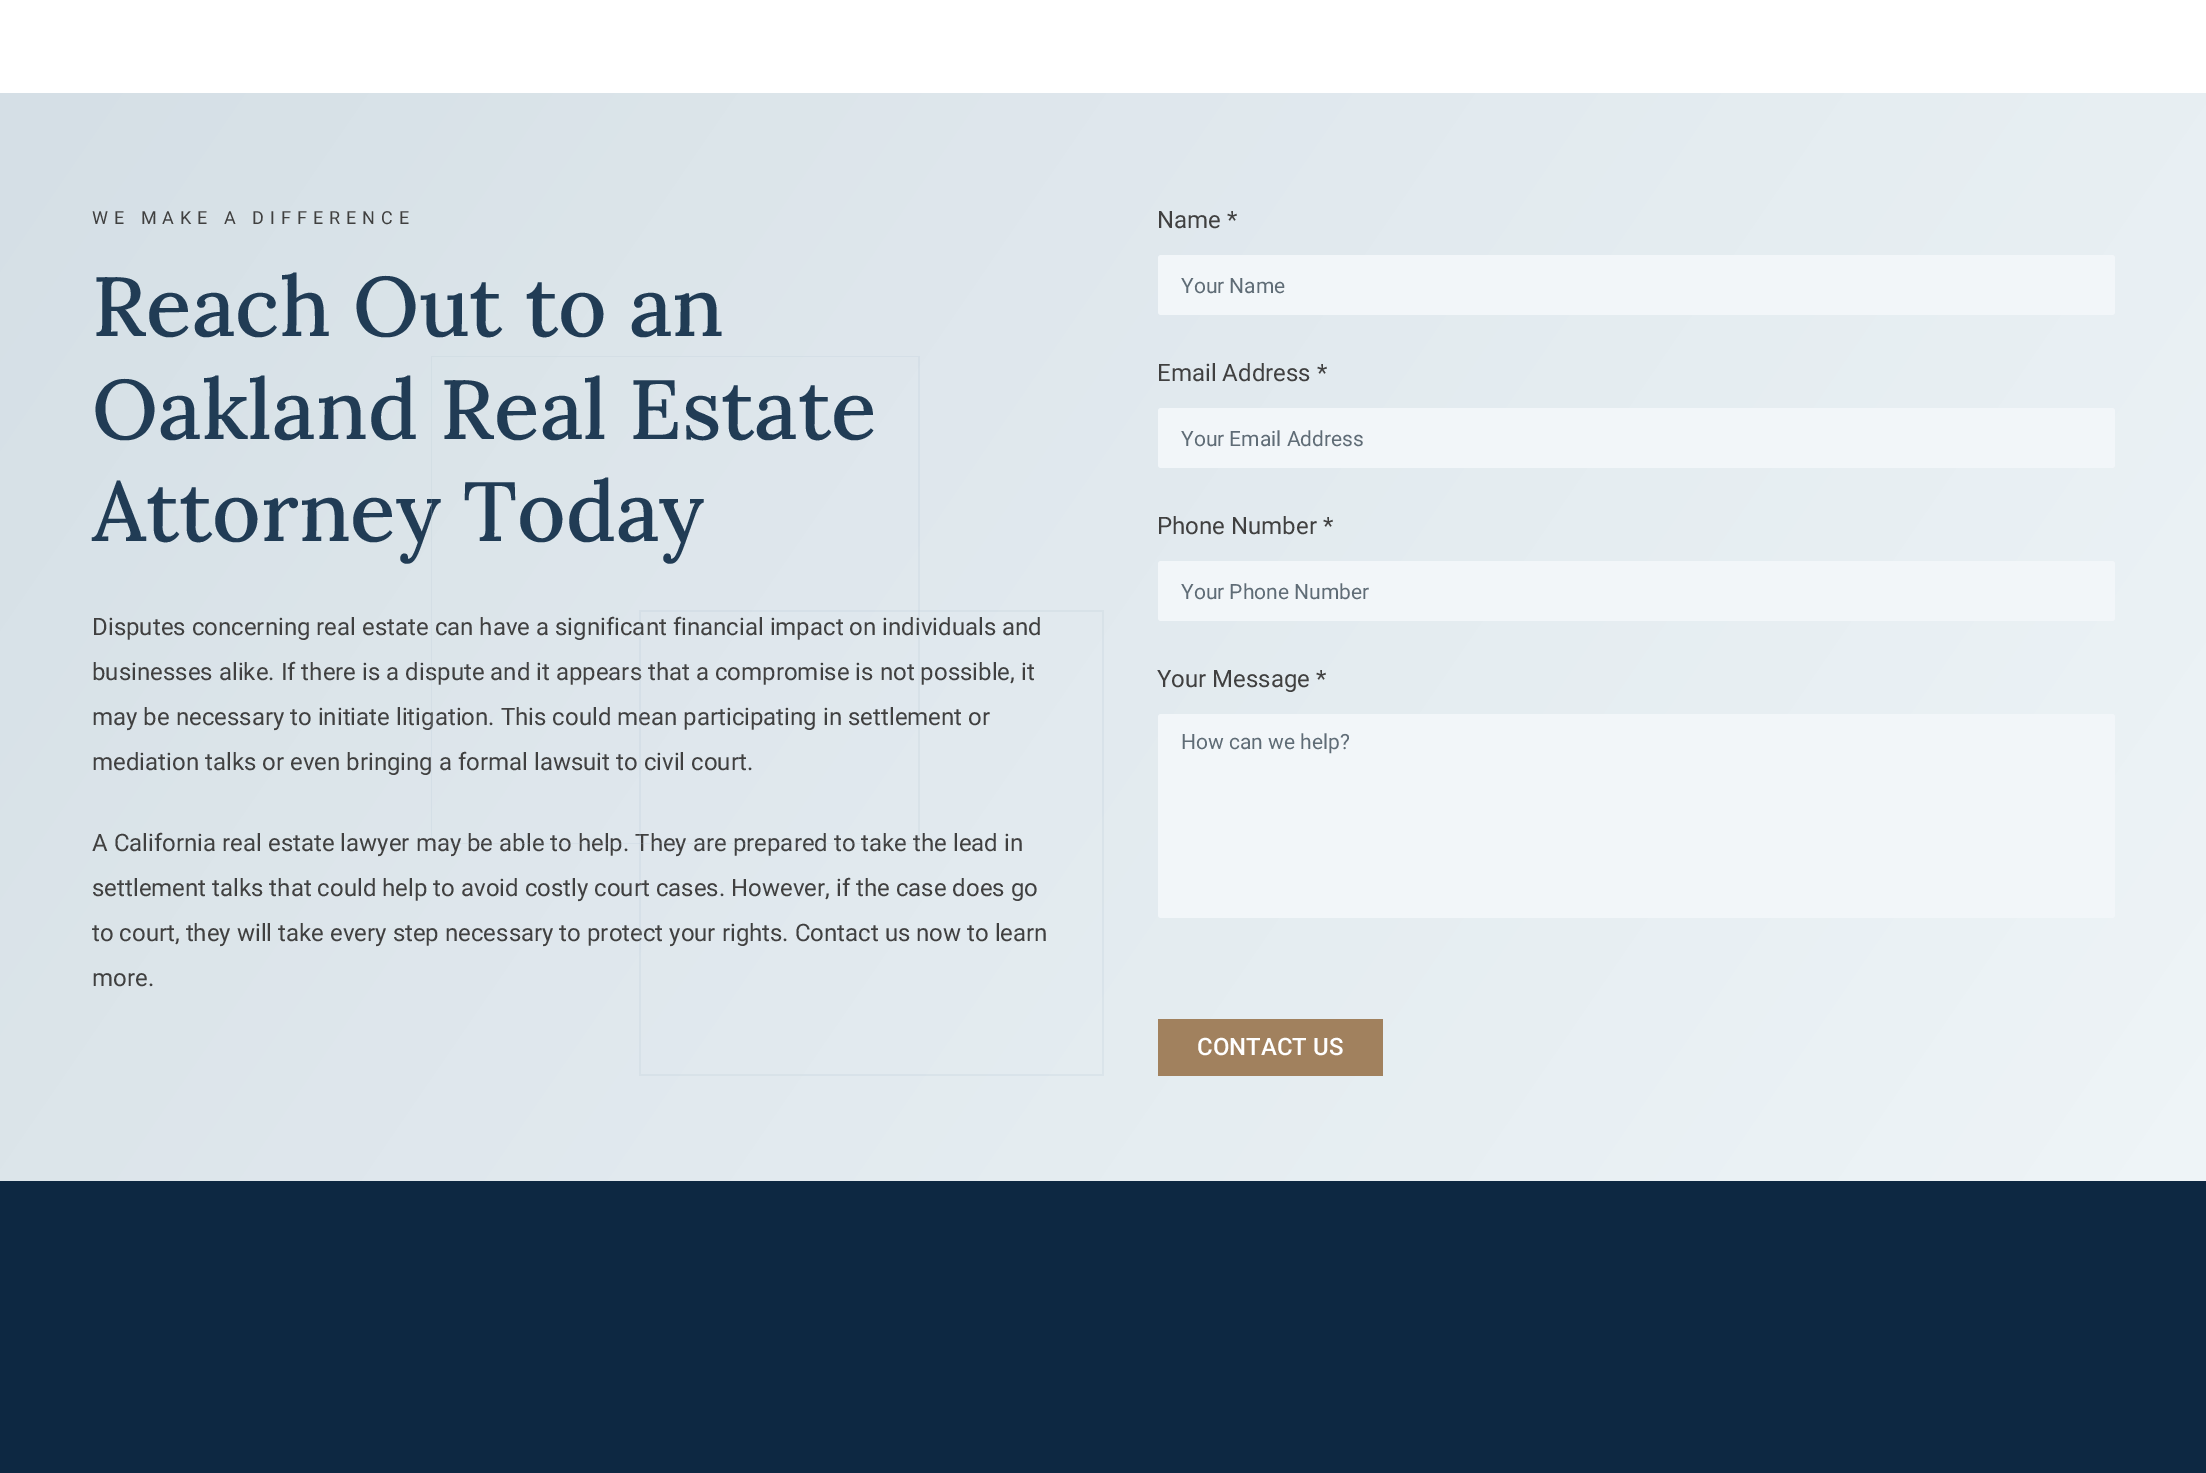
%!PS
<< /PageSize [2206 1473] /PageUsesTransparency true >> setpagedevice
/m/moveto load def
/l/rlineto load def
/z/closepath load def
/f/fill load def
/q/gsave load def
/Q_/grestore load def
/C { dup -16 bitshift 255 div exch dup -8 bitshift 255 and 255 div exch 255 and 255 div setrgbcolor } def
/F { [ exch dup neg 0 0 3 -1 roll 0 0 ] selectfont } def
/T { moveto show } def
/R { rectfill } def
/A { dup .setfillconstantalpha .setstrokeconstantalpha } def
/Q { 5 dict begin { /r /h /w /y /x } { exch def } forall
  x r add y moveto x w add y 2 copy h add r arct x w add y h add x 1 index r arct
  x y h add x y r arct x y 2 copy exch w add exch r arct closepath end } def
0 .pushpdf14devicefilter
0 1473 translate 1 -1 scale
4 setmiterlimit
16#FFFFFF C
0 0 2206 1473 R
q 0 93 m 2206 0 l 0 1088 l -2206 0 l z clip newpath
<< /ShadingType 2 /ColorSpace /DeviceRGB /Coords [-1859 -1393 2108 1325] /Extend [true true] /Function << /FunctionType 3 /Domain [0 1] /Functions [<< /FunctionType 2 /Domain [0 1] /C0 [.741 .796 .835] /C1 [.933 .957 .969] /N 1 >> << /FunctionType 2 /Domain [0 1] /C0 [.933 .957 .969] /C1 [.933 .957 .969] /N 1 >>] /Bounds [.99] /Encode [0 1 0 1] >> >> shfill Q_
/Roboto-Regular 18 F
16#404040 C
92 224 m 6 0 (WE MAKE A DIFFERENCE) ashow
/Lora-Medium 84 F
16#213C55 C
(Reach Out to an) 92 336 T
(Oakland Real Estate) 92 439 T
(Attorney Today) 92 541 T
/Roboto-Regular 24 F
16#404040 C
(Disputes concerning real estate can have a significant financial impact on individuals and) 92 635 T
(businesses alike. If there is a dispute and it appears that a compromise is not possible, it) 92 680 T
(may be necessary to initiate litigation. This could mean participating in settlement or) 92 725 T
(mediation talks or even bringing a formal lawsuit to civil court.) 92 770 T
(A California real estate lawyer may be able to help. They are prepared to take the lead in) 92 851 T
(settlement talks that could help to avoid costly court cases. However, if the case does go) 92 896 T
(to court, they will take every step necessary to protect your rights. Contact us now to learn) 92 941 T
(more.) 92 986 T
(Name *) 1157 228 T
16#F2F6F9 C
1158 255 957 60 3 Q f
/Roboto-Regular 21 F
16#5F6C76 C
(Your Name) 1181 293 T
/Roboto-Regular 24 F
16#404040 C
(Email Address *) 1157 381 T
16#F2F6F9 C
1158 408 957 60 3 Q f
/Roboto-Regular 21 F
16#5F6C76 C
(Your Email Address) 1181 446 T
/Roboto-Regular 24 F
16#404040 C
(Phone Number *) 1157 534 T
16#F2F6F9 C
1158 561 957 60 3 Q f
/Roboto-Regular 21 F
16#5F6C76 C
(Your Phone Number) 1181 599 T
/Roboto-Regular 24 F
16#404040 C
(Your Message *) 1157 687 T
16#F2F6F9 C
1158 714 957 204 3 Q f
/Roboto-Regular 21 F
16#5F6C76 C
(How can we help?) 1181 749 T
16#A1815E C
1158 1019 225 57 R
/Roboto-Medium 24 F
16#FFFFFF C
(CONTACT US) 1197 1055 T
0.2 A
16#B2C4D2 C
1102 612 m -461 0 l 0 462 l 461 0 l z 639 610 m 0 466 l 465 0 l 0 -466 l z eofill
q
431 356 673 720 rectclip
918 357 m -486 0 l 0 486 l 486 0 l z 430 356 m 0 488 l 490 0 l 0 -488 l z eofill
Q_
1 A
16#0D2842 C
0 1181 2206 292 R
.poppdf14devicefilter showpage
